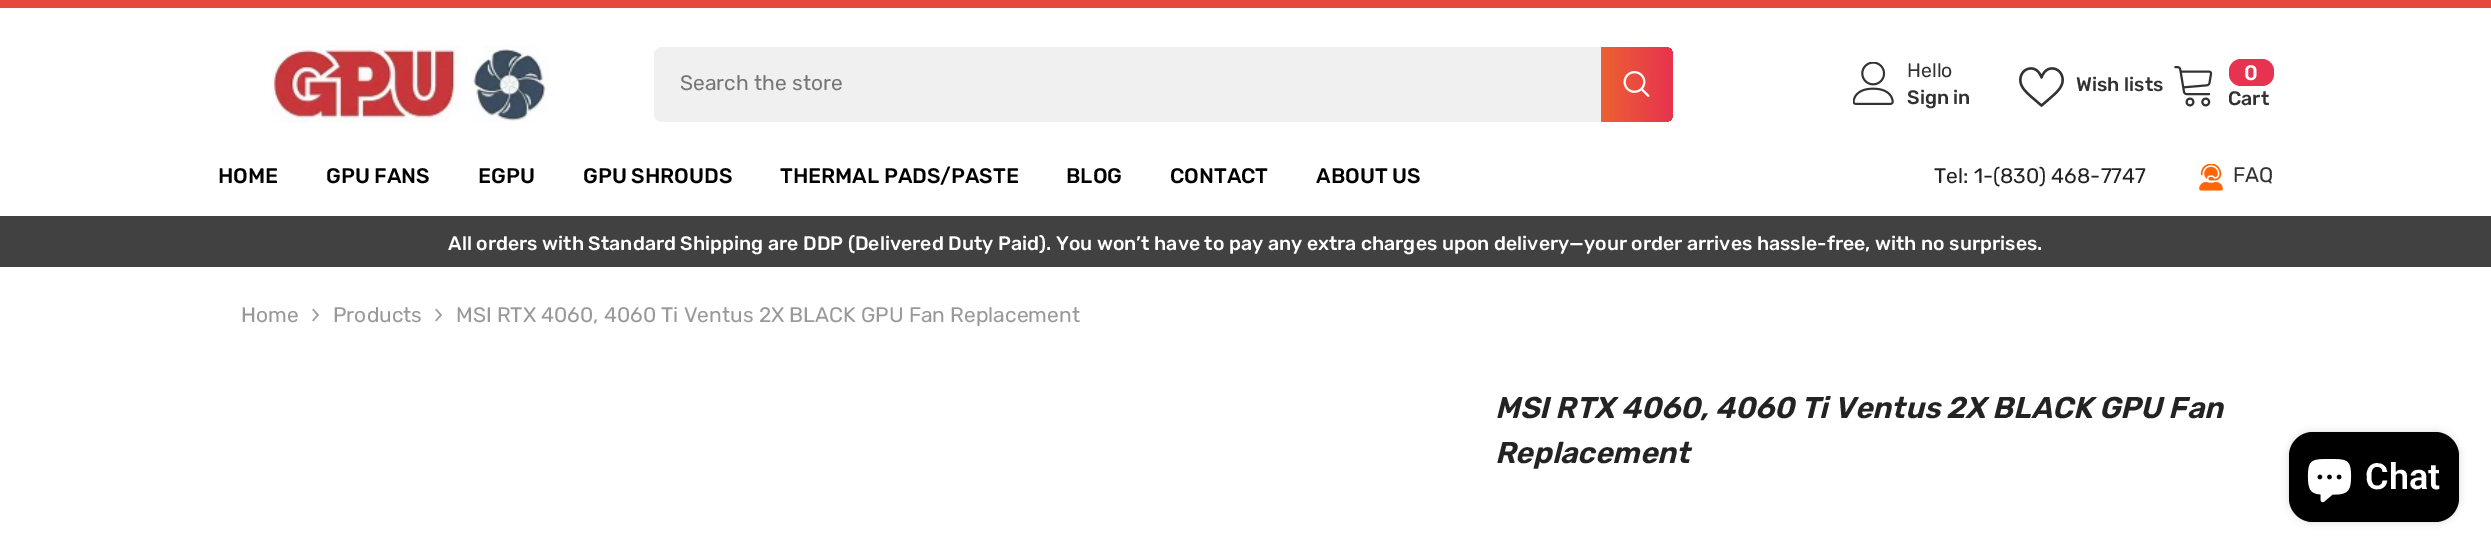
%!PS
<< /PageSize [2491 553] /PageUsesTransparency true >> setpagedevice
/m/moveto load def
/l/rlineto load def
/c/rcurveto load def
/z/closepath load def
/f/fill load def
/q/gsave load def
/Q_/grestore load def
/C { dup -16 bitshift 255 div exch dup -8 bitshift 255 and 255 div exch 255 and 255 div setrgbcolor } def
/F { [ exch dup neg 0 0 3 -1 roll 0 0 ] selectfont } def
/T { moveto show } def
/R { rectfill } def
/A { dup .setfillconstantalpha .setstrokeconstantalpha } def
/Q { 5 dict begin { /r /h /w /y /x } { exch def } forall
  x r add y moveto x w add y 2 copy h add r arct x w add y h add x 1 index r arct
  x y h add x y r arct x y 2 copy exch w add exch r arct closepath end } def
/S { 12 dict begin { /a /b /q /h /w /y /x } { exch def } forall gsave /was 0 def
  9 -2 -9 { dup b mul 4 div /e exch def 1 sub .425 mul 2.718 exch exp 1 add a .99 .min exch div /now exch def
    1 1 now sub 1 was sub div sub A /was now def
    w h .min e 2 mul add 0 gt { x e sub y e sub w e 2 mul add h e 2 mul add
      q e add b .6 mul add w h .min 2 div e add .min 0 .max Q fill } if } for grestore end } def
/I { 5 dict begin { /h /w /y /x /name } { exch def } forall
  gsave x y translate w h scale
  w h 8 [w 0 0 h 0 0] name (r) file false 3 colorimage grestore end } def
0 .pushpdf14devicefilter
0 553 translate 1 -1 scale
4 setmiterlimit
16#FFFFFF C
0 0 2491 553 R
16#E64A3D C
0 0 2491 8 R
(1.rgb) 271 45 278 78 I
16#F0F0F0 C
654 47 1019 75 8 Q f
/Rubik-Regular 21 F
16#767676 C
(Search the store) 680 90 T
q 1601 47 m 64 0 l 4.5 0 8 3.5 8 8 c 0 59 l 0 4.5 -3.5 8 -8 8 c -64 0 l z clip newpath
<< /ShadingType 2 /ColorSpace /DeviceRGB /Coords [1601 84 1673 84] /Extend [true true] /Function << /FunctionType 2 /Domain [0 1] /C0 [.925 .38 .192] /C1 [.906 .2 .31] /N 1 >> >> shfill Q_
(2.rgb) 1623 71 27 26 I
(3.rgb) 1853 62 41 43 I
/Rubik-Regular 19.5 F
16#323232 C
(Hello) 1907 77 T
/Rubik-Medium 19.5 F
(Sign in) 1907 104 T
(4.rgb) 2019 67 45 40 I
(Wish lists) 2076 91 T
(5.rgb) 2174 66 39 41 I
16#E7334F C
2229 59 45 27 12 Q f
/Rubik-Medium 21 F
16#FFFFFF C
(0) 2244 80 T
/Rubik-Medium 19.5 F
16#323232 C
(Cart) 2228 105 T
/Rubik-Medium 21 F
16#000000 C
(HOME) 218 183 T
(GPU FANS) 326 183 T
(EGPU) 478 183 T
(GPU SHROUDS) 583 183 T
(THERMAL PADS/PASTE) 780 183 T
(BLOG) 1066 183 T
(CONTACT) 1170 183 T
(ABOUT US) 1316 183 T
/Rubik-Regular 21 F
16#232323 C
(Tel: 1-\(830\) 468-7747) 1934 183 T
(6.rgb) 2199 164 24 27 I
16#323232 C
(FAQ) 2233 182 T
16#414141 C
0 216 2491 51 R
/Rubik-Medium 19.5 F
16#FFFFFF C
(All orders with Standard Shipping are DDP \(Delivered Duty Paid\). You won’t have to pay any extra charges upon delivery—your order arrives hassle-free, with no surprises.) 448 250 T
/Rubik-Regular 21 F
16#999999 C
(Home) 241 322 T
(7.rgb) 312 308 7 14 I
(Products) 333 322 T
(7.rgb) 435 308 7 14 I
(MSI RTX 4060, 4060 Ti Ventus 2X BLACK GPU Fan Replacement) 456 322 T
/Rubik-SemiBoldItalic 30 F
16#232323 C
(MSI RTX 4060, 4060 Ti Ventus 2X BLACK GPU Fan) 1495 418 T
(Replacement) 1495 463 T
16#000000 C
2289 432 170 90 24 4 .15 S
2289 432 170 90 24 Q f
(8.rgb) 2307 459 45 44 I
/Roboto-SemiBold 36 F
16#FFFFFF C
(Chat) 2365 489 T
.poppdf14devicefilter showpage
